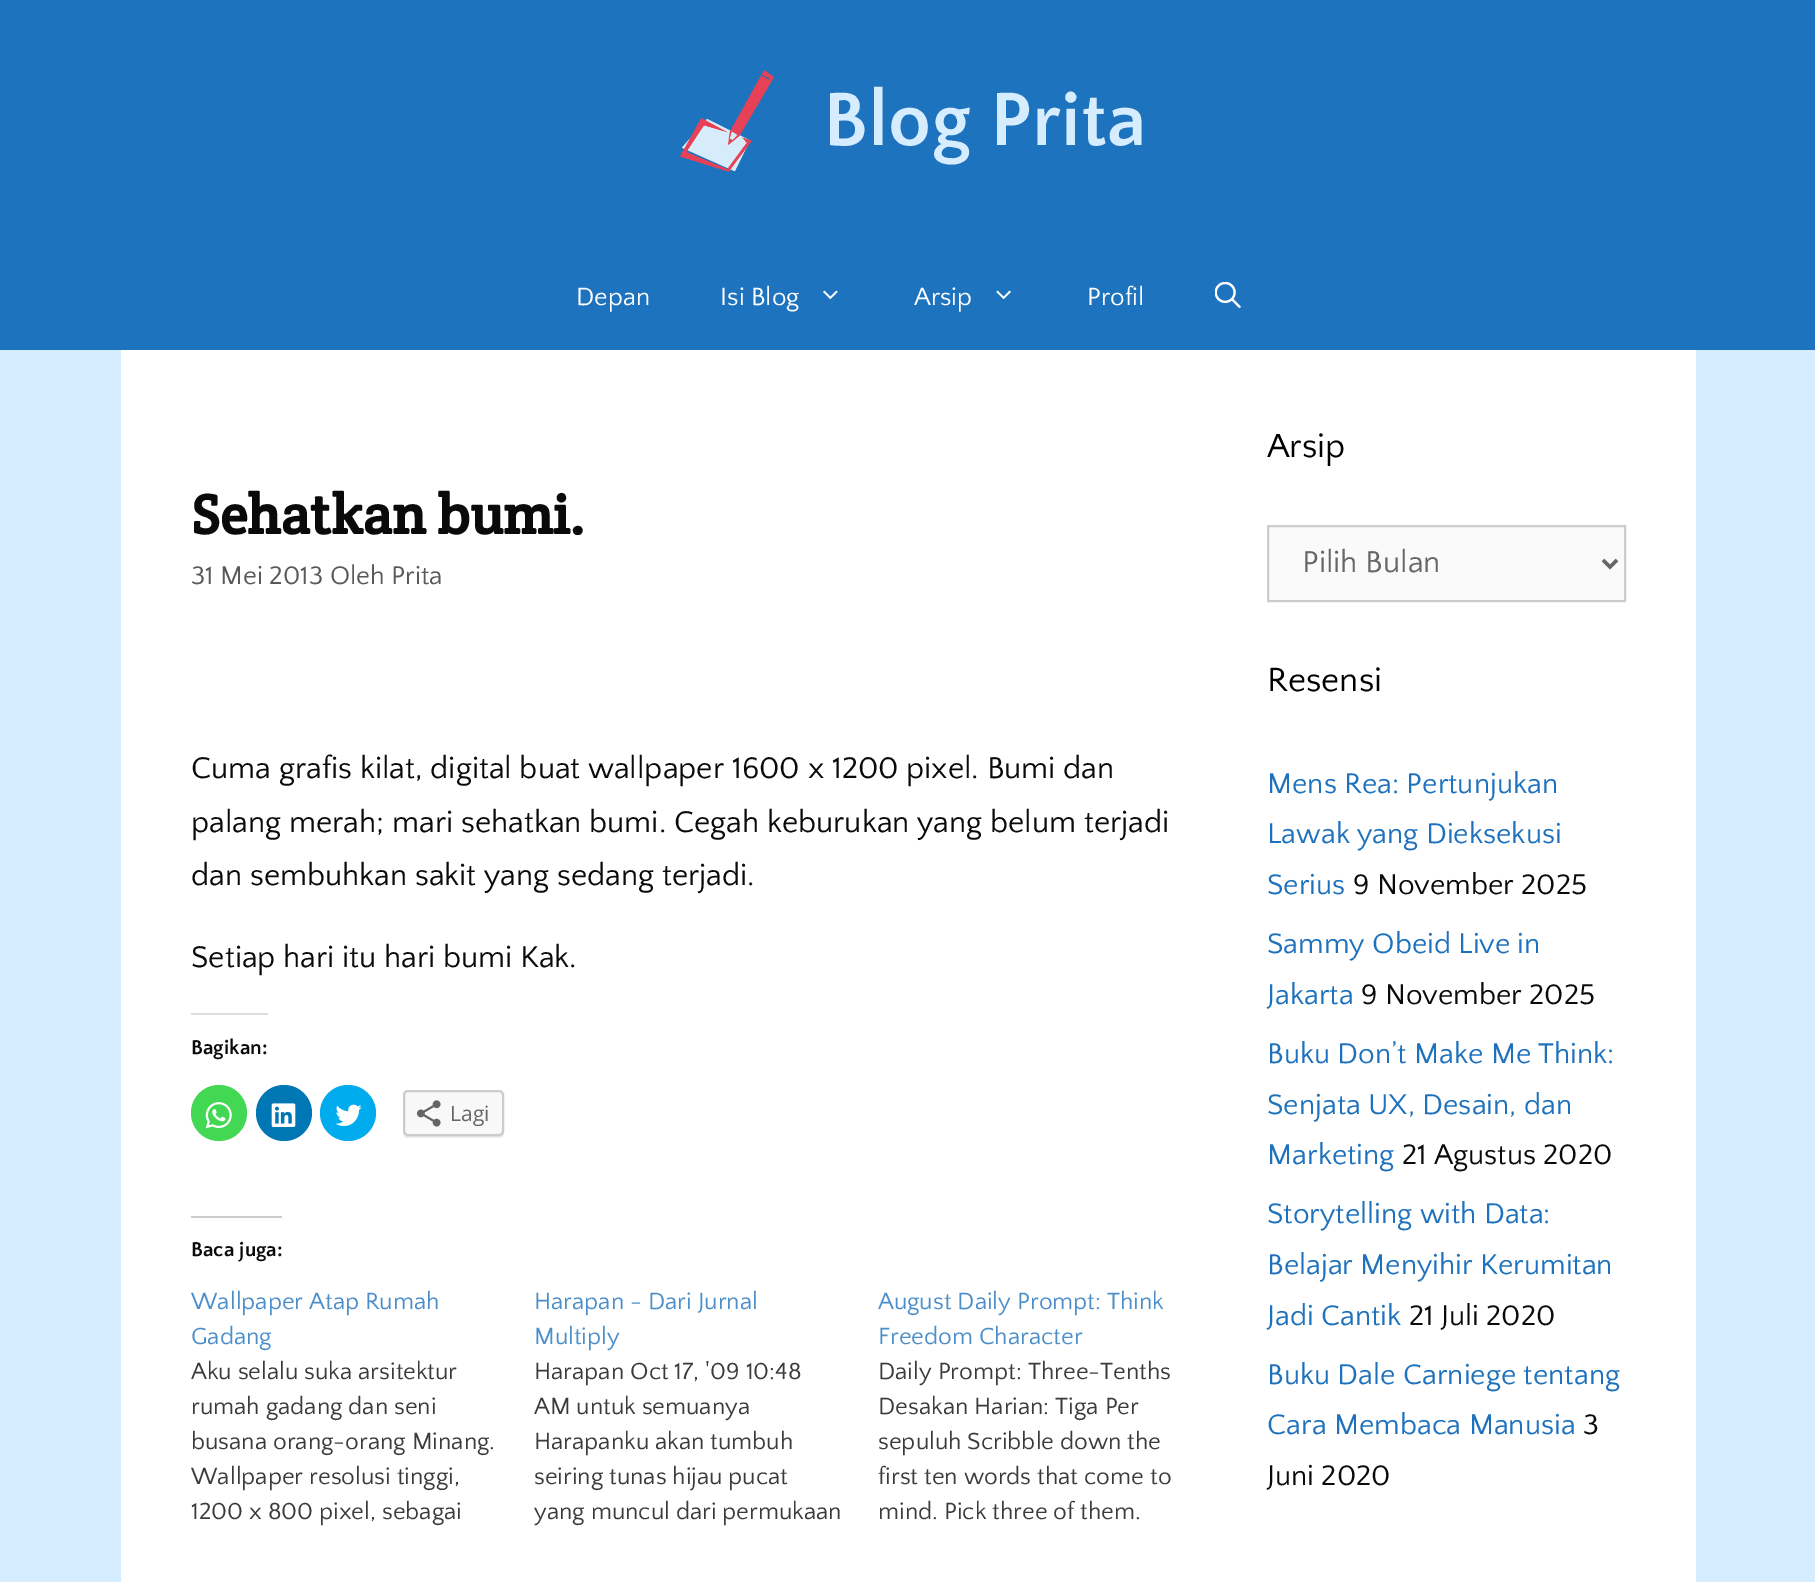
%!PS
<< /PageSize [1815 1582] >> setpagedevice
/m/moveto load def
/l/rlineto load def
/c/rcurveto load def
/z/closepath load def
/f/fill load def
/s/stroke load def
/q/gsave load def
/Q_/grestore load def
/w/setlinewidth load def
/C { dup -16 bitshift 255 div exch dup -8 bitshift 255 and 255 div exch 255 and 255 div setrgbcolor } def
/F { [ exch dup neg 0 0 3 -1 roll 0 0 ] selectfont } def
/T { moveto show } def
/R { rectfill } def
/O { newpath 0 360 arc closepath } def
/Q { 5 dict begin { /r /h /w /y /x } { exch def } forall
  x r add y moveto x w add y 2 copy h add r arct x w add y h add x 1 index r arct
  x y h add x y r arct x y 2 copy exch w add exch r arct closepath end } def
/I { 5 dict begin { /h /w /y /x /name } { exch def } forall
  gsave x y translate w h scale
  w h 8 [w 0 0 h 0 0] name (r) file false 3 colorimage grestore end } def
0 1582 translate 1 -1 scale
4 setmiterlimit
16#D6ECFF C
0 0 1815 1582 R
16#1E73BE C
0 0 1815 350 R
(1.rgb) 679 70 95 102 I
/QuattrocentoSans-Bold 78.75 F
16#D6ECFF C
(Blog Prita) 823 145 T
/QuattrocentoSans-Regular 26 F
16#FFFFFF C
(Depan) 576 305 T
(Isi Blog) 720 305 T
(2.rgb) 823 290 15 10 I
(Arsip) 914 305 T
(3.rgb) 996 290 15 10 I
(Profil) 1087 305 T
(4.rgb) 1215 282 26 26 I
121 350 1575 1232 R
/CreteRound-Bold 56 F
16#0A0A0A C
(Sehatkan bumi.) 191 534 T
/QuattrocentoSans-Regular 26.75 F
16#595959 C
(31 Mei 2013 Oleh Prita) 191 584 T
/QuattrocentoSans-Regular 31.5 F
16#0A0A0A C
(Cuma grafis kilat, digital buat wallpaper 1600 x 1200 pixel. Bumi dan) 191 778 T
(palang merah; mari sehatkan bumi. Cegah keburukan yang belum terjadi) 191 832 T
(dan sembuhkan sakit yang sedang terjadi.) 191 885 T
(Setiap hari itu hari bumi Kak.) 191 967 T
16#DDDDDD C
191 1013 77 2 R
/QuattrocentoSans-Bold 21 F
16#0A0A0A C
(Bagikan:) 191 1054 T
16#43D854 C
219 1113 28 O f
(5.rgb) 205 1102 27 27 I
16#0077B5 C
284 1113 28 O f
(6.rgb) 271 1103 25 24 I
16#00ACEE C
348 1113 28 O f
(7.rgb) 335 1104 27 22 I
16#EBEBEB C
403 1133 m 0 3 2 5 5 5 c 91 0 l 3 0 5 -2 5 -5 c 0 -3 l 0 3 -2 6 -5 6 c -91 0 l -2 0 -4 -1 -5 -3 c z f
16#F8F8F8 C
404 1091 99 44 4 Q q f Q_
16#CCCCCC C
2 w
s
(8.rgb) 416 1100 25 27 I
/OpenSans-Regular 21 F
16#666666 C
(Lagi) 450 1121 T
16#CCCCCC C
191 1216 91 2 R
/QuattrocentoSans-Bold 21 F
16#0A0A0A C
(Baca juga:) 191 1256 T
/QuattrocentoSans-Regular 24.5 F
16#4B8ECA C
(Wallpaper Atap Rumah) 191 1309 T
(Gadang) 191 1344 T
16#3B3B3B C
(Aku selalu suka arsitektur) 191 1379 T
(rumah gadang dan seni) 191 1414 T
(busana orang-orang Minang.) 191 1449 T
(Wallpaper resolusi tinggi,) 191 1484 T
(1200 x 800 pixel, sebagai) 191 1519 T
16#4B8ECA C
(Harapan - Dari Jurnal) 534 1309 T
(Multiply) 534 1344 T
16#3B3B3B C
(Harapan Oct 17, '09 10:48) 534 1379 T
(AM untuk semuanya) 534 1414 T
(Harapanku akan tumbuh) 534 1449 T
(seiring tunas hijau pucat) 534 1484 T
(yang muncul dari permukaan) 534 1519 T
16#4B8ECA C
(August Daily Prompt: Think) 878 1309 T
(Freedom Character) 878 1344 T
16#3B3B3B C
(Daily Prompt: Three-Tenths) 878 1379 T
(Desakan Harian: Tiga Per) 878 1414 T
(sepuluh Scribble down the) 878 1449 T
(first ten words that come to) 878 1484 T
(mind. Pick three of them.) 878 1519 T
/QuattrocentoSans-Regular 35 F
16#000000 C
(Arsip) 1267 457 T
16#FAFAFA C
1268 526 m 357 0 l 0 75 l -357 0 l z q f Q_
16#CCCCCC C
s
16#666666 C
3.5 w
1603 560 m 7 7 l 7 -7 l s
/QuattrocentoSans-Regular 31.5 F
(Pilih Bulan) 1302 572 T
/QuattrocentoSans-Regular 35 F
16#000000 C
(Resensi) 1267 691 T
/QuattrocentoSans-Regular 29.75 F
16#1E72BD C
(Mens Rea: Pertunjukan) 1267 793 T
(Lawak yang Dieksekusi) 1267 843 T
(Serius) 1267 894 T
16#0A0A0A C
(9 November 2025) 1353 894 T
16#1E72BD C
(Sammy Obeid Live in) 1267 953 T
(Jakarta) 1267 1004 T
16#0A0A0A C
(9 November 2025) 1361 1004 T
16#1E72BD C
(Buku Don’t Make Me Think:) 1267 1063 T
(Senjata UX, Desain, dan) 1267 1114 T
(Marketing) 1267 1164 T
16#0A0A0A C
(21 Agustus 2020) 1402 1164 T
16#1E72BD C
(Storytelling with Data:) 1267 1223 T
(Belajar Menyihir Kerumitan) 1267 1274 T
(Jadi Cantik) 1267 1325 T
16#0A0A0A C
(21 Juli 2020) 1409 1325 T
16#1E72BD C
(Buku Dale Carniege tentang) 1267 1384 T
(Cara Membaca Manusia) 1267 1434 T
16#0A0A0A C
(3) 1583 1434 T
(Juni 2020) 1267 1485 T
showpage
